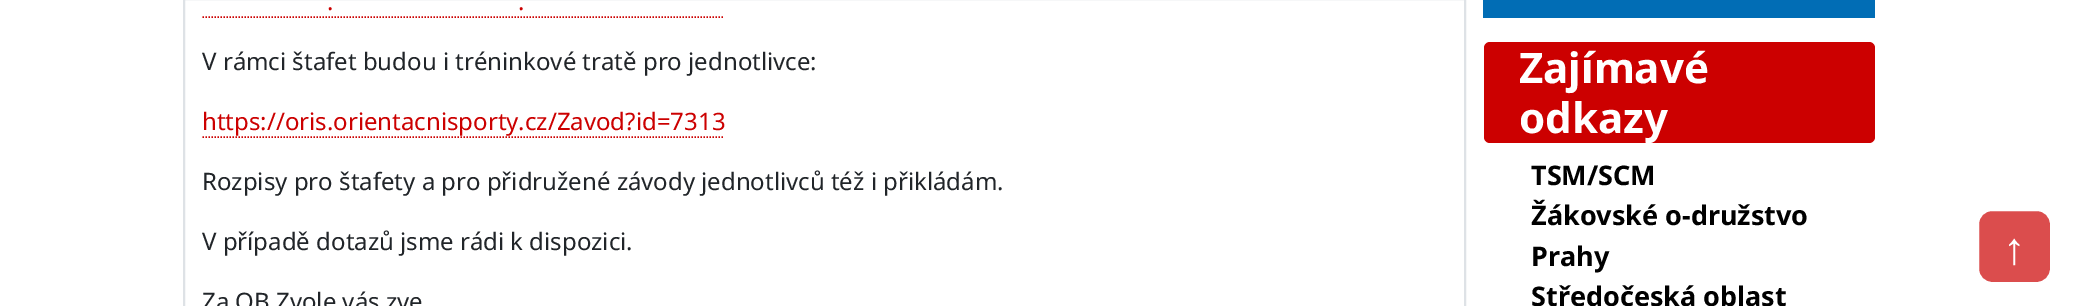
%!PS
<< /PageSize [2074 306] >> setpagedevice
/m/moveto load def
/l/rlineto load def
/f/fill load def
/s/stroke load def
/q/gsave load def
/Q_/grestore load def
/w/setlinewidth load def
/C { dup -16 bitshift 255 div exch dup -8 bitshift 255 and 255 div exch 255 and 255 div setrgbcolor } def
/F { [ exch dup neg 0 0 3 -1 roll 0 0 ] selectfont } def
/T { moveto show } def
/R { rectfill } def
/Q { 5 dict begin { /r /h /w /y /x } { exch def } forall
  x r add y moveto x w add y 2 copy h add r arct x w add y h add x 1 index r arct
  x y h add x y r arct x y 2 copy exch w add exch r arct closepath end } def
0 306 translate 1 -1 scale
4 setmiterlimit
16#FFFFFF C
0 0 2074 306 R
16#DEE2E6 C
2 w
184 -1 1281 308 rectstroke
/NotoSans-Regular 24 F
16#CC0000 C
(.) 327 10 T
1.5 w
[1.5 1.5] 0 setdash
202.5 17 m 522 0 l s
(.) 518 10 T
16#212529 C
(V rámci štafet budou i tréninkové tratě pro jednotlivce:) 202 70 T
16#CC0000 C
(https://oris.orientacnisporty.cz/Zavod?id=7313) 202 130 T
202.5 137 m 522 0 l s
16#212529 C
(Rozpisy pro štafety a pro přidružené závody jednotlivců též i přikládám.) 202 190 T
(V případě dotazů jsme rádi k dispozici.) 202 250 T
(Za OB Zvole vás zve) 202 310 T
16#016DB5 C
1483 0 392 18 R
16#CC0000 C
1484 42 391 101 6 Q f
/NotoSans-Bold 42 F
16#FFFFFF C
(Zajímavé) 1519 83 T
(odkazy) 1519 133 T
/NotoSans-Bold 27 F
16#000000 C
(TSM/SCM) 1531 185 T
(Žákovské o-družstvo) 1531 225 T
(Prahy) 1531 266 T
(Středočeská oblast) 1531 306 T
16#DB4D4D C
1978 210 73 73 14 Q q f Q_
16#FFFFFF C
2 w
[] 0 setdash
s
/LiberationSans-Regular 45 F
(↑) 2003 264 T
showpage
